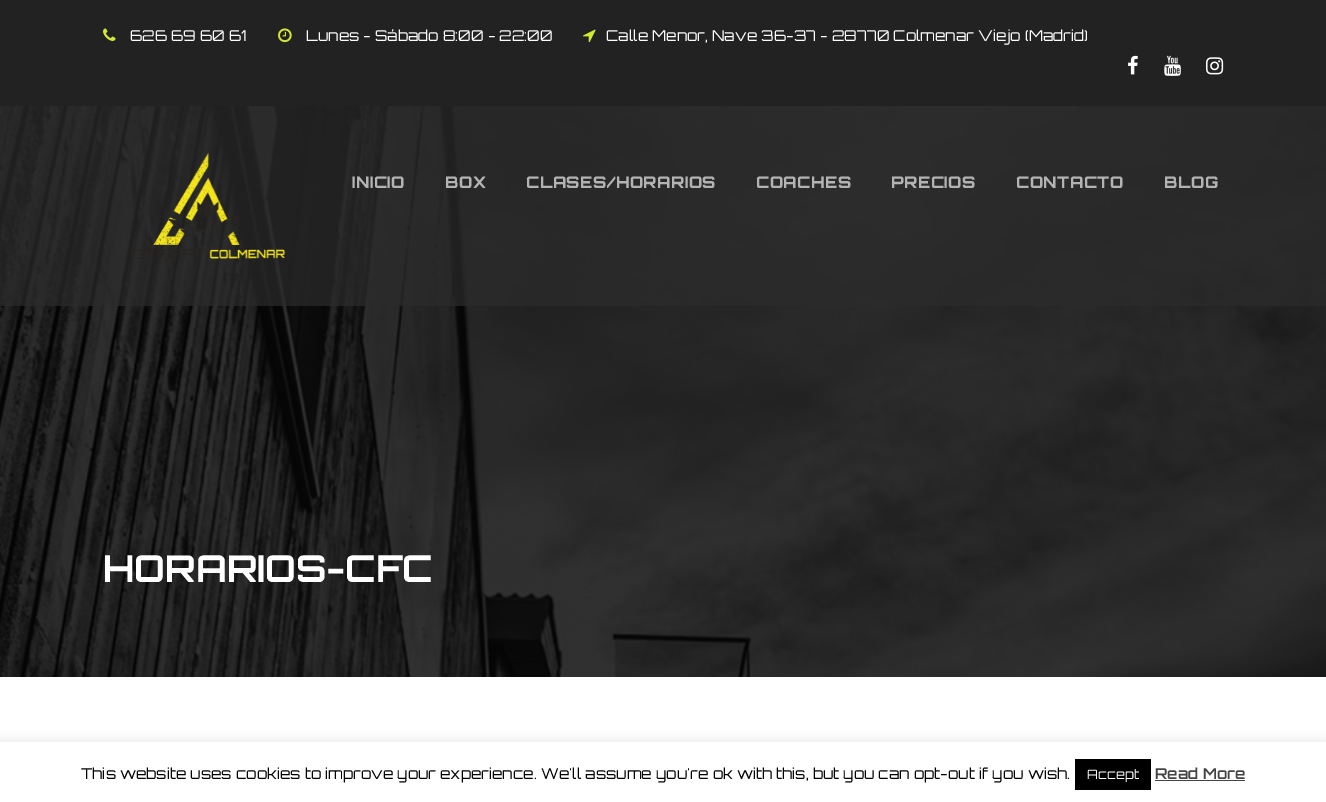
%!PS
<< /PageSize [1326 802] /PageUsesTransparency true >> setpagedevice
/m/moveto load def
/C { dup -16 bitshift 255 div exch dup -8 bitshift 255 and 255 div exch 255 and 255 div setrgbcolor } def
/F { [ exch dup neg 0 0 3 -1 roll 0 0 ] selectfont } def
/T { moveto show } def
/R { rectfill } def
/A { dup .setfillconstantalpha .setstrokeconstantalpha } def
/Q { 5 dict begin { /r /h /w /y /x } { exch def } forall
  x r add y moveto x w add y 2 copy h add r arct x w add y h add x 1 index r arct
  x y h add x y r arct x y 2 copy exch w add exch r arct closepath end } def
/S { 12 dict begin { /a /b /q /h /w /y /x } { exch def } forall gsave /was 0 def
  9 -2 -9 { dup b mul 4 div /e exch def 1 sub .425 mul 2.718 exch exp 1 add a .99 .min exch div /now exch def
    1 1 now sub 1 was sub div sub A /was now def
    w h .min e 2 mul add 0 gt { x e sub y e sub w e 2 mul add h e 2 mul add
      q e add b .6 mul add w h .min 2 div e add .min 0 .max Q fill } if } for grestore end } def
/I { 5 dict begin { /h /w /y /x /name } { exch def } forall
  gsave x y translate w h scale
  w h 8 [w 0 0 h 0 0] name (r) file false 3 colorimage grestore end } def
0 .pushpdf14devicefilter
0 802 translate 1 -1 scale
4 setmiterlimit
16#FFFFFF C
0 0 1326 802 R
16#222222 C
0 0 1326 106 R
(1.rgb) 103 28 13 13 I
/Orbitron-Regular 15 F
16#FFFFFF C
(626 69 60 61) 130 41 T
(2.rgb) 278 28 14 15 I
(Lunes - Sábado 8:00 - 22:00) 306 41 T
(3.rgb) 583 29 13 14 I
(Calle Menor, Nave 36-37 - 28770 Colmenar Viejo \(Madrid\)) 606 41 T
(4.rgb) 1128 55 10 20 I
(5.rgb) 1164 55 17 21 I
(6.rgb) 1206 57 18 18 I
(8.rgb) 0 106 1326 571 I
0.7 A
16#2B2B2B C
0 106 1326 200 R
1 A
(7.rgb) 132 152 153 107 I
/Orbitron-ExtraBold 16 F
16#B3B3B3 C
352 188 m .5 0 (INICIO) ashow
445 188 m .5 0 (BOX) ashow
526 188 m .5 0 (CLASES/HORARIOS) ashow
756 188 m .5 0 (COACHES) ashow
891 188 m .5 0 (PRECIOS) ashow
1016 188 m .5 0 (CONTACTO) ashow
1164 188 m .5 0 (BLOG) ashow
/Orbitron-Bold 37 F
16#FFFFFF C
(HORARIOS-CFC) 103 582 T
16#ACABAB C
0 741 1326 60 0 5 .3 S
16#FFFFFF C
0 742 1326 60 R
/Orbitron-Regular 15 F
16#000000 C
(This website uses cookies to improve your experience. We'll assume you're ok with this, but you can opt-out if you wish.) 81 779 T
1075 759 76 31 R
/Orbitron-Regular 13 F
16#FFFFFF C
(Accept) 1087 779 T
/Orbitron-SemiBold 15 F
16#444444 C
(Read More) 1155 779 T
1155 780 90 1 R
.poppdf14devicefilter showpage
